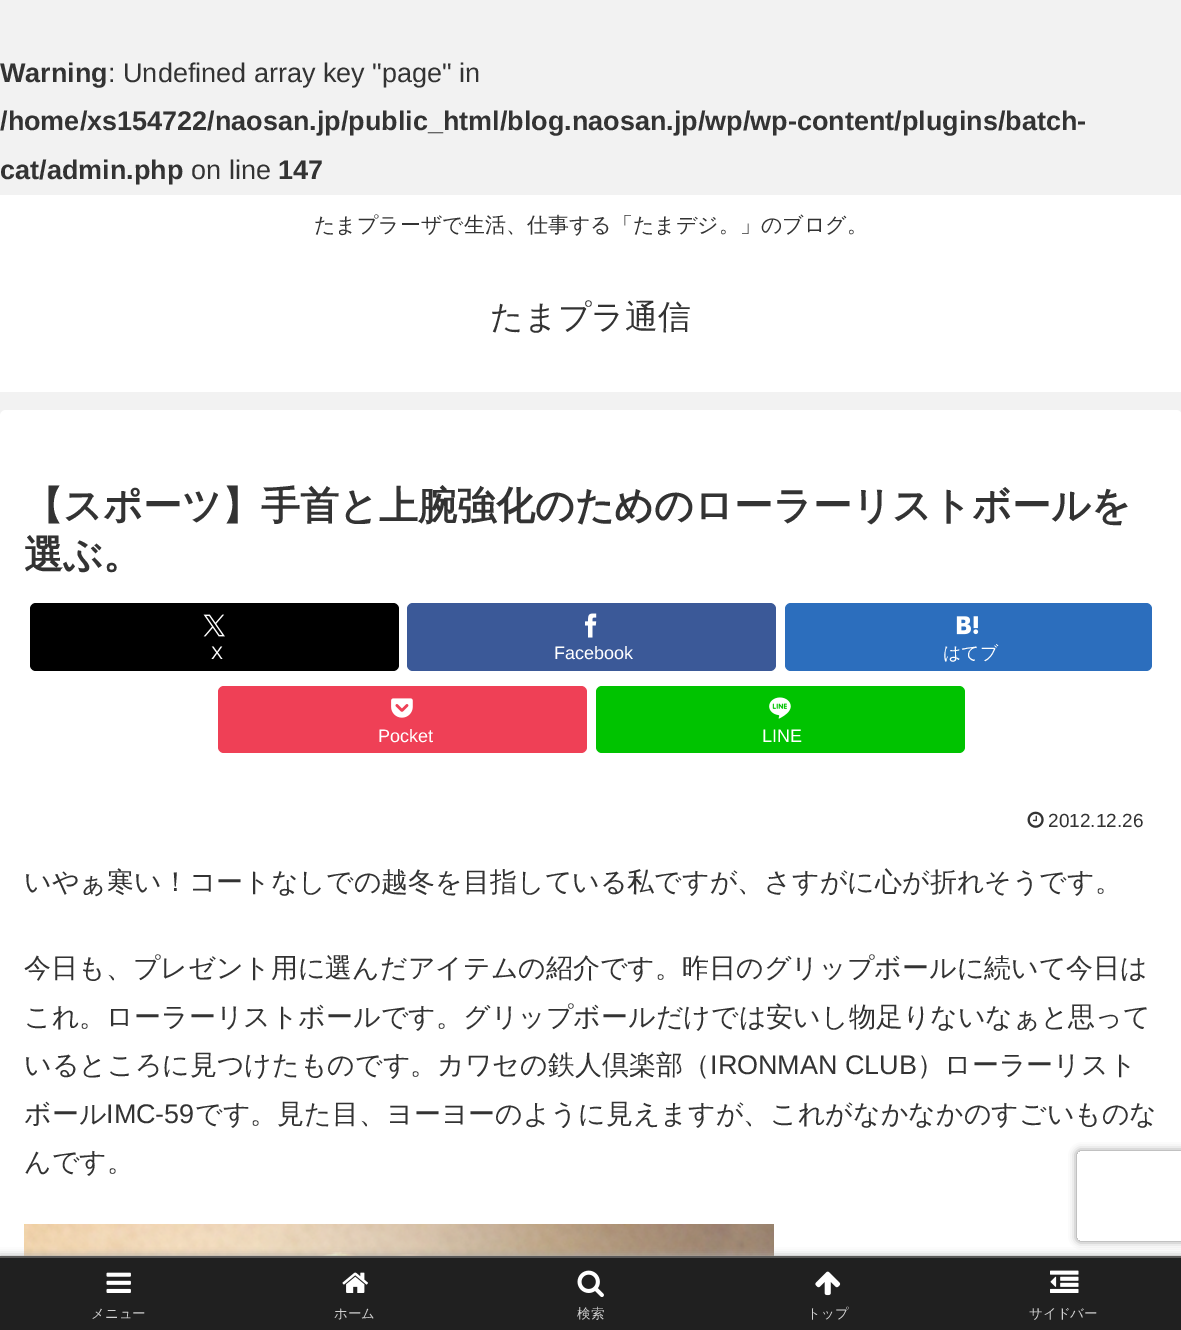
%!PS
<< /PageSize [1181 1330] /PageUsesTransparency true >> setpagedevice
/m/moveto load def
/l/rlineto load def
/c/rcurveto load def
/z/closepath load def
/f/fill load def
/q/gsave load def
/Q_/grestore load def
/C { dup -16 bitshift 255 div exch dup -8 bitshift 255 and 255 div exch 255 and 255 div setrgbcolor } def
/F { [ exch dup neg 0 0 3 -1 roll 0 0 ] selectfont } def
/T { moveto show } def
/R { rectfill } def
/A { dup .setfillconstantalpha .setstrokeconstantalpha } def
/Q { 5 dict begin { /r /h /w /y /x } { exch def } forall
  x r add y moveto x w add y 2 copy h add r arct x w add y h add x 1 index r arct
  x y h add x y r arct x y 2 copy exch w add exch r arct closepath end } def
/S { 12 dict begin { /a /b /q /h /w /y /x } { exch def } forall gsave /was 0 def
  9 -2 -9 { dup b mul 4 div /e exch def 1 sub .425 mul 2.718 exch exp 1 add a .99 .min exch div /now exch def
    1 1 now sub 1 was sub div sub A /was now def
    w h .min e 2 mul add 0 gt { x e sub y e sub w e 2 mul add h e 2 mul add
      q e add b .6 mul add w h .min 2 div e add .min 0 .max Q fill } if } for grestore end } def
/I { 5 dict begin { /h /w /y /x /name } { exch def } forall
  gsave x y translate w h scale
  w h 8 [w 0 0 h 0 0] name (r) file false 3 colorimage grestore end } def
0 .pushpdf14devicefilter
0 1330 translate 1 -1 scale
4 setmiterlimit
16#F2F2F2 C
0 0 1181 1330 R
/LiberationSans-Bold 27 F
16#333333 C
(Warning) 0 82 T
/LiberationSans-Regular 27 F
(: Undefined array key "page" in) 108 82 T
/LiberationSans-Bold 27 F
(/home/xs154722/naosan.jp/public_html/blog.naosan.jp/wp/wp-content/plugins/batch-) 0 130 T
(cat/admin.php) 0 179 T
/LiberationSans-Regular 27 F
(on line) 191 179 T
/LiberationSans-Bold 27 F
(147) 278 179 T
16#FFFFFF C
0 195 1181 197 R
/WenQuanYiZenHei-Medium 21 F
16#333333 C
(たまプラーザで生活、仕事する「たまデジ。」のブログ。) 314 232 T
/WenQuanYiZenHei-Medium 33 F
(たまプラ通信) 490 328 T
16#FFFFFF C
0 410 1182 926 6 Q f
/WenQuanYiZenHei-Bold 39 F
16#333333 C
(【スポーツ】手首と上腕強化のためのローラーリストボールを) 24 519 T
(選ぶ。) 24 568 T
16#000000 C
30 603 369 68 6 Q f
(1.rgb) 203 614 22 23 I
/LiberationSans-Regular 18 F
16#FFFFFF C
(X) 211 659 T
16#3B5998 C
407 603 369 68 6 Q f
(2.rgb) 585 613 12 25 I
16#FFFFFF C
(Facebook) 554 659 T
16#2C6EBD C
785 603 367 68 6 Q f
(3.rgb) 956 616 23 19 I
/WenQuanYiZenHei-Medium 18 F
16#FFFFFF C
(はてブ) 943 659 T
16#EF4056 C
218 686 369 67 6 Q f
(4.rgb) 391 698 22 20 I
/LiberationSans-Regular 18 F
16#FFFFFF C
(Pocket) 378 742 T
16#00C300 C
596 686 369 67 6 Q f
(5.rgb) 769 697 22 22 I
16#FFFFFF C
(LINE) 762 742 T
(6.rgb) 1027 811 17 17 I
/LiberationSans-Regular 19 F
16#333333 C
(2012.12.26) 1048 827 T
/WenQuanYiZenHei-Medium 27 F
(いやぁ寒い！コートなしでの越冬を目指している私ですが、さすがに心が折れそうです。) 24 891 T
(今日も、プレゼント用に選んだアイテムの紹介です。昨日のグリップボールに続いて今日は) 24 977 T
(これ。ローラーリストボールです。グリップボールだけでは安いし物足りないなぁと思って) 24 1026 T
(いるところに見つけたものです。カワセの鉄人倶楽部（) 24 1074 T
/LiberationSans-Regular 27 F
(IRONMAN CLUB) 710 1074 T
/WenQuanYiZenHei-Medium 27 F
(）ローラーリスト) 917 1074 T
(ボール) 24 1123 T
/LiberationSans-Regular 27 F
(IMC-59) 106 1123 T
/WenQuanYiZenHei-Medium 27 F
(です。見た目、ヨーヨーのように見えますが、これがなかなかのすごいものな) 195 1123 T
(んです。) 24 1171 T
(7.rgb) 24 1224 750 32 I
16#A9A9A9 C
0 1256 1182 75 0 4 1 S
16#202020 C
0 1258 1181 72 R
16#595857 C
0 1256 1181 2 R
(8.rgb) 106 1272 25 21 I
/WenQuanYiZenHei-Medium 13.5 F
16#D2D2D2 C
(メニュー) 91 1318 T
(9.rgb) 342 1272 26 21 I
(ホーム) 334 1318 T
(10.rgb) 577 1270 27 27 I
(検索) 577 1318 T
(11.rgb) 815 1271 26 25 I
(トップ) 807 1318 T
(12.rgb) 1050 1270 29 23 I
(サイドバー) 1029 1318 T
q
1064 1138 m 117 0 l 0 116 l -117 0 l z 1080 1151 m 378 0 l 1.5 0 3 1.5 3 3 c 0 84 l 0 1.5 -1.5 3 -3 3 c -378 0 l -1.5 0 -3 -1.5 -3 -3 c 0 -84 l 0 -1.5 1.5 -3 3 -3 c z eoclip newpath
16#808080 C
1077 1151 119 90 3 4 1 S
Q_
.poppdf14devicefilter showpage
